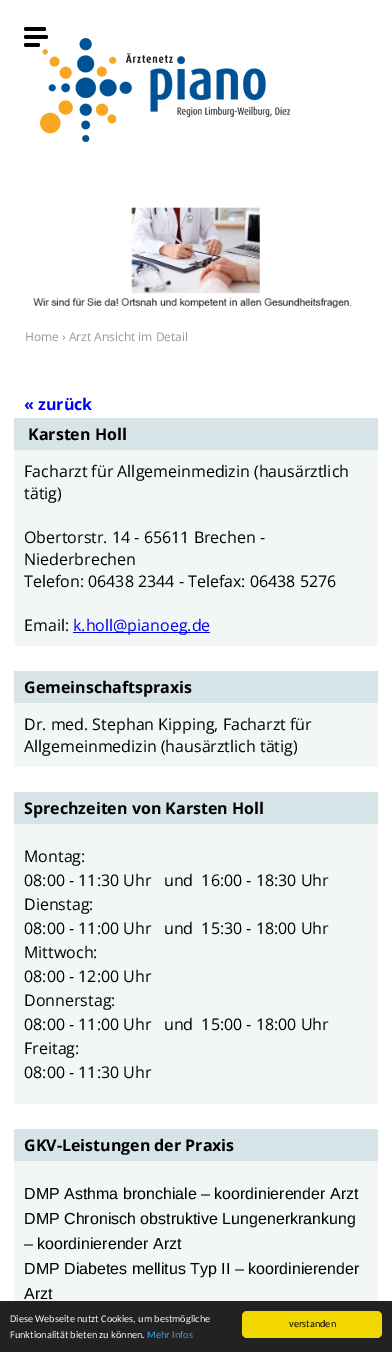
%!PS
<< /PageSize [392 1352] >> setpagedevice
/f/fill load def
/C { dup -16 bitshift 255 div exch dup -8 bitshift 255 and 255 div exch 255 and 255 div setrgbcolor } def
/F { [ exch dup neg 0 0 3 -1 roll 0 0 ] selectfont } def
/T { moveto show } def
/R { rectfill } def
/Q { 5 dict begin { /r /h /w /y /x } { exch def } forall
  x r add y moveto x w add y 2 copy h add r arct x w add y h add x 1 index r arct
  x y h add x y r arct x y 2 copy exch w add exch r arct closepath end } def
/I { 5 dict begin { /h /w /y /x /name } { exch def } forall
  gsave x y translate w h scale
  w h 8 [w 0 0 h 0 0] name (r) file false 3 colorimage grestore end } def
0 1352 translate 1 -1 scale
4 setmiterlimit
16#FFFFFF C
0 0 392 1352 R
(1.rgb) 40 38 250 104 I
16#000000 C
24 35 24 4 2 Q f
24 27 22 4 2 Q f
24 43 16 4 2 Q f
(2.rgb) 33 207 319 102 I
/OpenSans-Regular 12 F
16#999999 C
(Home › Arzt Ansicht im Detail) 25 341 T
/OpenSans-Bold 16 F
16#0000EE C
(« zurück) 24 410 T
16#D6E4E7 C
14 418 364 32 R
16#000000 C
(Karsten Holl) 28 440 T
16#F2F6F5 C
14 450 364 196 R
/OpenSans-Regular 16 F
16#000000 C
(Facharzt für Allgemeinmedizin \(hausärztlich) 24 477 T
(tätig\)) 24 499 T
(Obertorstr. 14 - 65611 Brechen -) 24 543 T
(Niederbrechen) 24 565 T
(Telefon: 06438 2344 - Telefax: 06438 5276) 24 587 T
(Email:) 24 631 T
16#0000EE C
73 632 137 1 R
(k.holl@pianoeg.de) 73 631 T
16#D6E4E7 C
14 671 364 32 R
/OpenSans-Bold 16 F
16#000000 C
(Gemeinschaftspraxis) 24 693 T
16#F2F6F5 C
14 703 364 64 R
/OpenSans-Regular 16 F
16#000000 C
(Dr. med. Stephan Kipping, Facharzt für) 24 730 T
(Allgemeinmedizin \(hausärztlich tätig\)) 24 752 T
16#D6E4E7 C
14 792 364 32 R
/OpenSans-Bold 16 F
16#000000 C
(Sprechzeiten von Karsten Holl) 24 814 T
16#F2F6F5 C
14 824 364 280 R
/OpenSans-Regular 16 F
16#000000 C
(Montag:) 24 862 T
(08:00 - 11:30 Uhr   und  16:00 - 18:30 Uhr) 24 886 T
(Dienstag:) 24 910 T
(08:00 - 11:00 Uhr   und  15:30 - 18:00 Uhr) 24 934 T
(Mittwoch:) 24 958 T
(08:00 - 12:00 Uhr) 24 982 T
(Donnerstag:) 24 1006 T
(08:00 - 11:00 Uhr   und  15:00 - 18:00 Uhr) 24 1030 T
(Freitag:) 24 1054 T
(08:00 - 11:30 Uhr) 24 1078 T
16#D6E4E7 C
14 1129 364 32 R
/OpenSans-Bold 16 F
16#000000 C
(GKV-Leistungen der Praxis) 24 1151 T
16#F2F6F5 C
14 1161 364 140 R
/LiberationSans-Regular 16 F
16#000000 C
(DMP Asthma bronchiale – koordinierender Arzt) 24 1199 T
(DMP Chronisch obstruktive Lungenerkrankung) 24 1224 T
(– koordinierender Arzt) 24 1249 T
(DMP Diabetes mellitus Typ II – koordinierender) 24 1274 T
(Arzt) 24 1299 T
16#222222 C
0 1301 392 51 R
/Carlito-Regular 10.25 F
16#FFFFFF C
(Diese Webseite nutzt Cookies, um bestmögliche) 10 1322 T
(Funktionalität bieten zu können.) 10 1338 T
16#31A8F0 C
(Mehr Infos) 147 1338 T
16#F1D600 C
242 1311 140 27 5 Q f
16#000000 C
(verstanden) 289 1327 T
showpage
